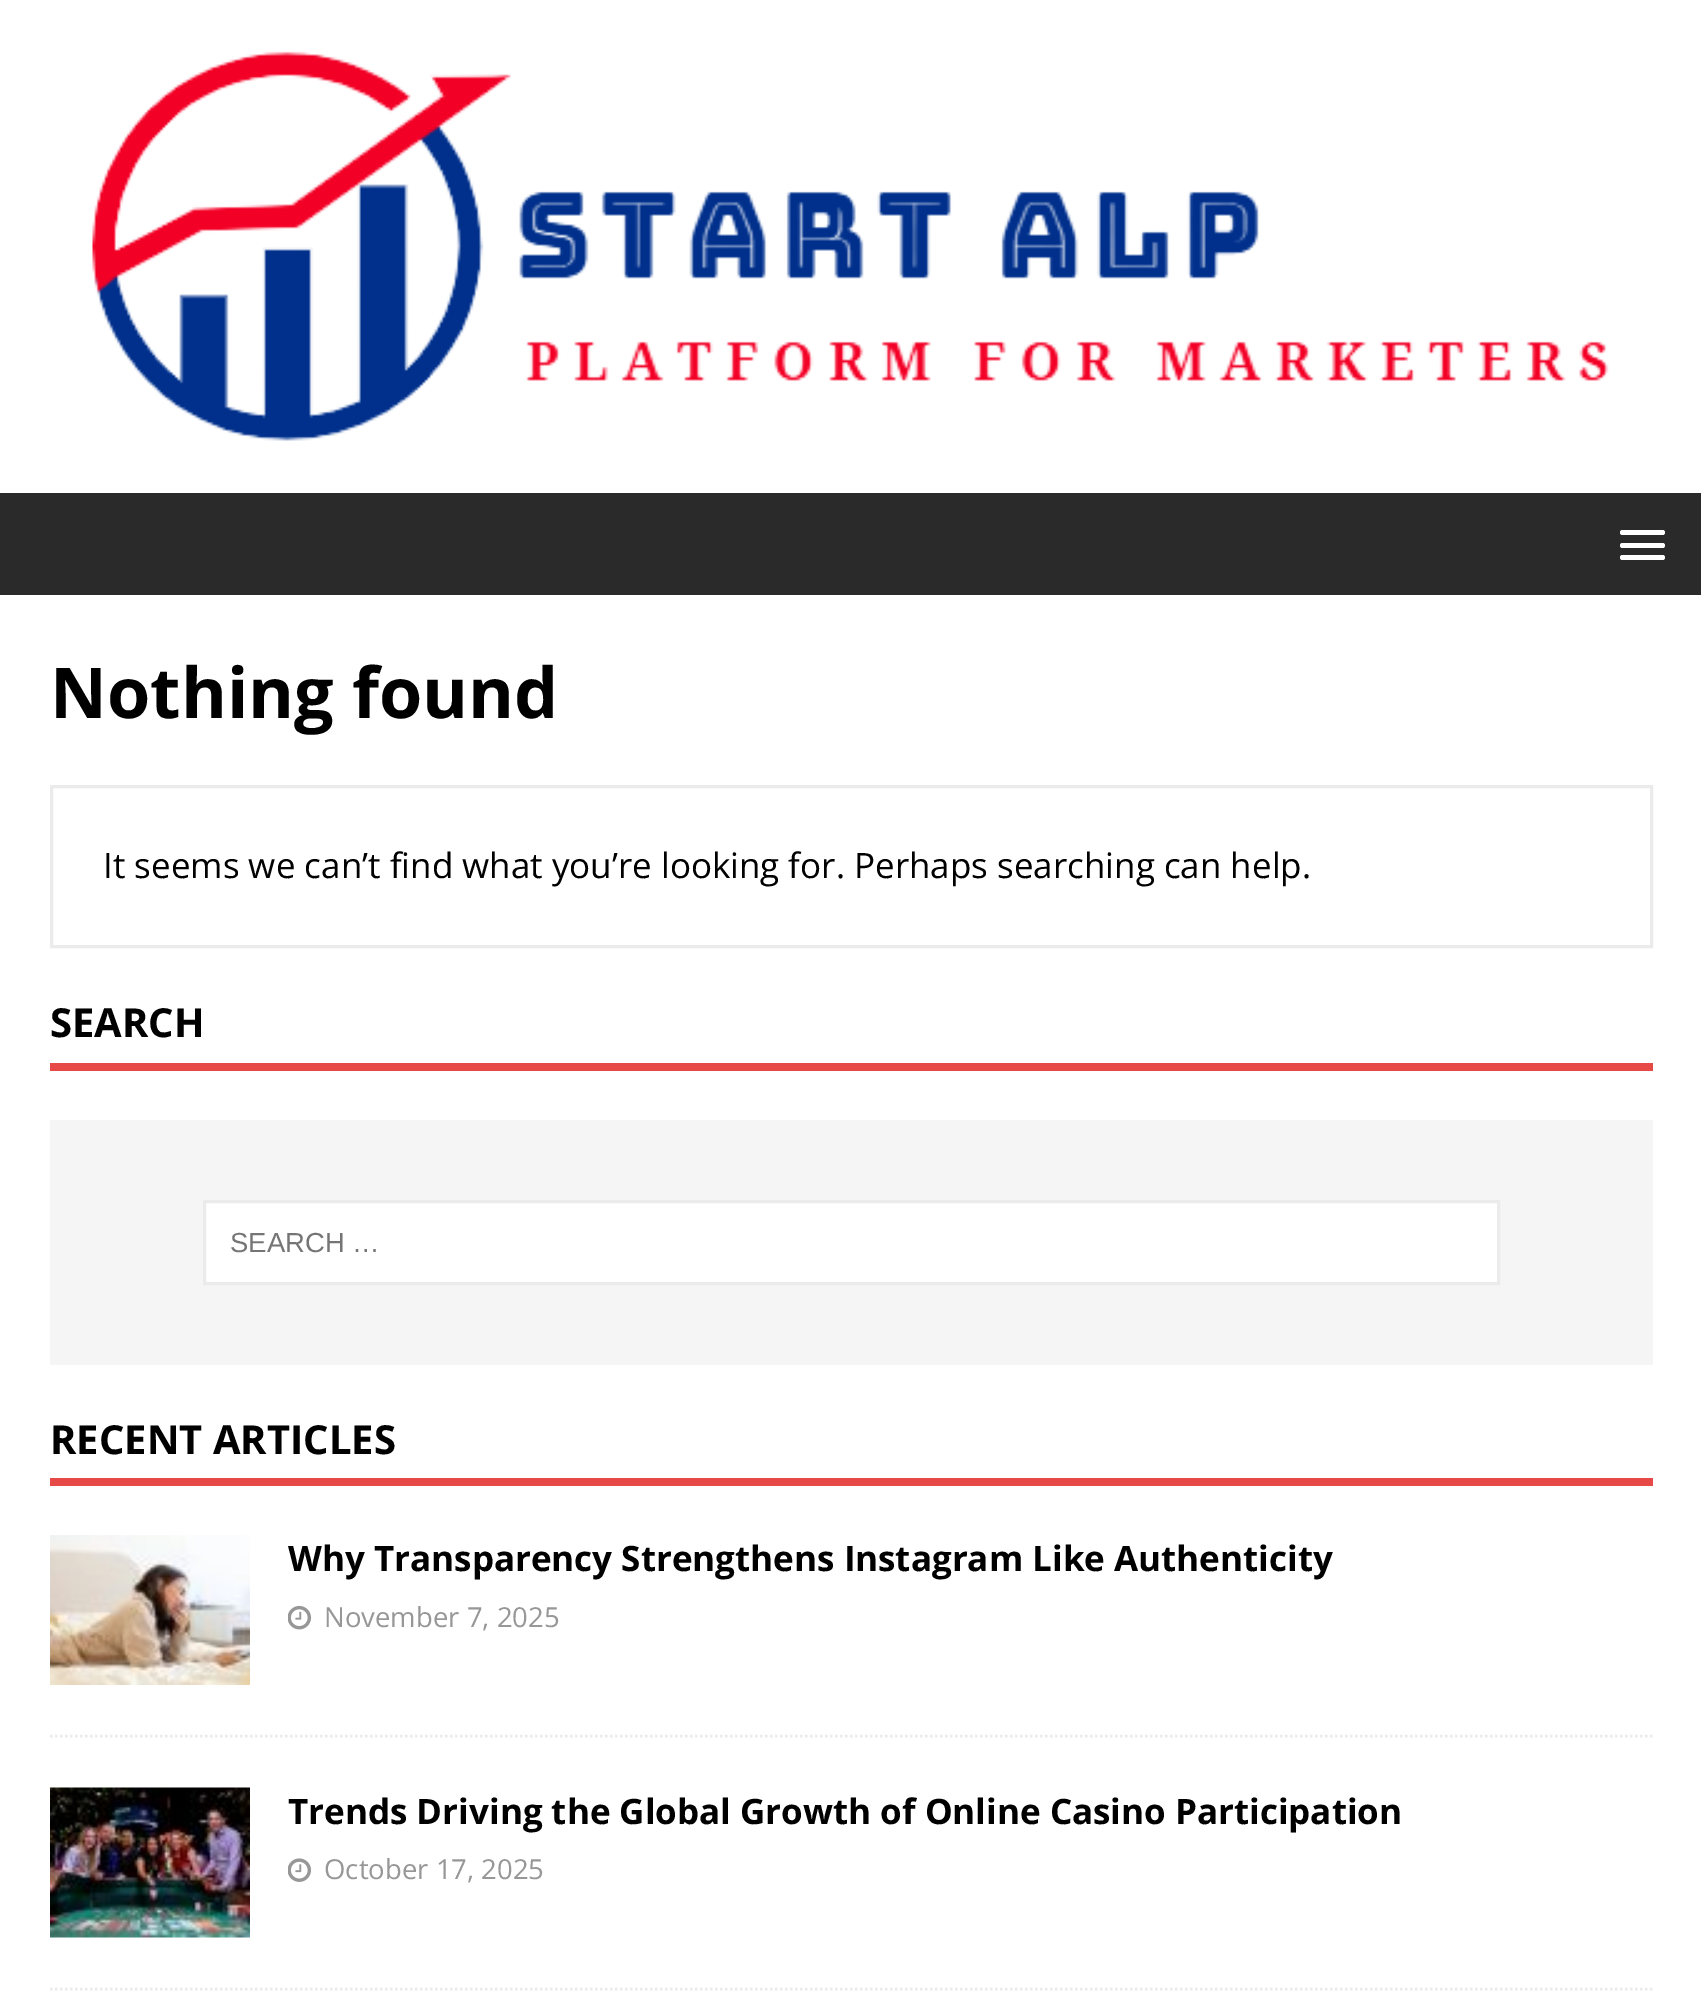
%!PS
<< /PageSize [1701 2009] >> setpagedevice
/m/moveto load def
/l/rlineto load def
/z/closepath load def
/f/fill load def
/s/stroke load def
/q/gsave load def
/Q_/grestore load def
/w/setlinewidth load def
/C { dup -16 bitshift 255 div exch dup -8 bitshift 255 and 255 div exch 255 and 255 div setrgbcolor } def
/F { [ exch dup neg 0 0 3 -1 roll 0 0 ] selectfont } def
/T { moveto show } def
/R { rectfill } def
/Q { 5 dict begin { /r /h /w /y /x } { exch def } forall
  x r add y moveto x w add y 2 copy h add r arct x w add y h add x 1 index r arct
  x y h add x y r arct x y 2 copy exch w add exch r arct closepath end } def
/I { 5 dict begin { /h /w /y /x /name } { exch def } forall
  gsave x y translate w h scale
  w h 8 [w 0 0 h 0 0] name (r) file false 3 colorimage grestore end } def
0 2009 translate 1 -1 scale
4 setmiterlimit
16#FFFFFF C
0 0 1701 2009 R
(1.rgb) 92 51 1517 390 I
16#2A2A2A C
0 493 1701 102 R
16#FFFFFF C
1620 530 45 5 2.5 Q f
1620 543 45 5 2.5 Q f
1620 555 45 5 2.5 Q f
/OpenSans-Bold 70 F
16#000000 C
(Nothing found) 50 718 T
16#EBEBEB C
3 w
51.5 786.5 1600 160 rectstroke
/OpenSans-Regular 35 F
16#000000 C
(It seems we can’t find what you’re looking for. Perhaps searching can help.) 103 878 T
16#E64946 C
50 1063 1603 8 R
/OpenSans-Bold 40 F
16#000000 C
(SEARCH) 50 1037 T
16#F5F5F5 C
50 1120 1603 245 R
16#FFFFFF C
204.5 1201.5 m 1294 0 l 0 82 l -1294 0 l z q f Q_
16#EBEBEB C
s
/LiberationSans-Regular 27.5 F
16#757575 C
(SEARCH …) 230 1252 T
16#E64946 C
50 1478 1603 8 R
/OpenSans-Bold 40 F
16#000000 C
(RECENT ARTICLES) 50 1454 T
16#EBEBEB C
2.5 w
[2.5 2.5] 0 setdash
50 1736 m 1602.5 0 l s
(2.rgb) 50 1535 200 150 I
/OpenSans-Bold 35 F
16#000000 C
(Why Transparency Strengthens Instagram Like Authenticity) 288 1571 T
(3.rgb) 288 1605 24 25 I
/OpenSans-Regular 27.5 F
16#979797 C
(November 7, 2025) 324 1627 T
16#EBEBEB C
50 1989 m 1602.5 0 l s
(4.rgb) 50 1787 200 151 I
/OpenSans-Bold 35 F
16#000000 C
(Trends Driving the Global Growth of Online Casino Participation) 288 1824 T
(5.rgb) 288 1858 23 24 I
/OpenSans-Regular 27.5 F
16#979797 C
(October 17, 2025) 324 1879 T
showpage
